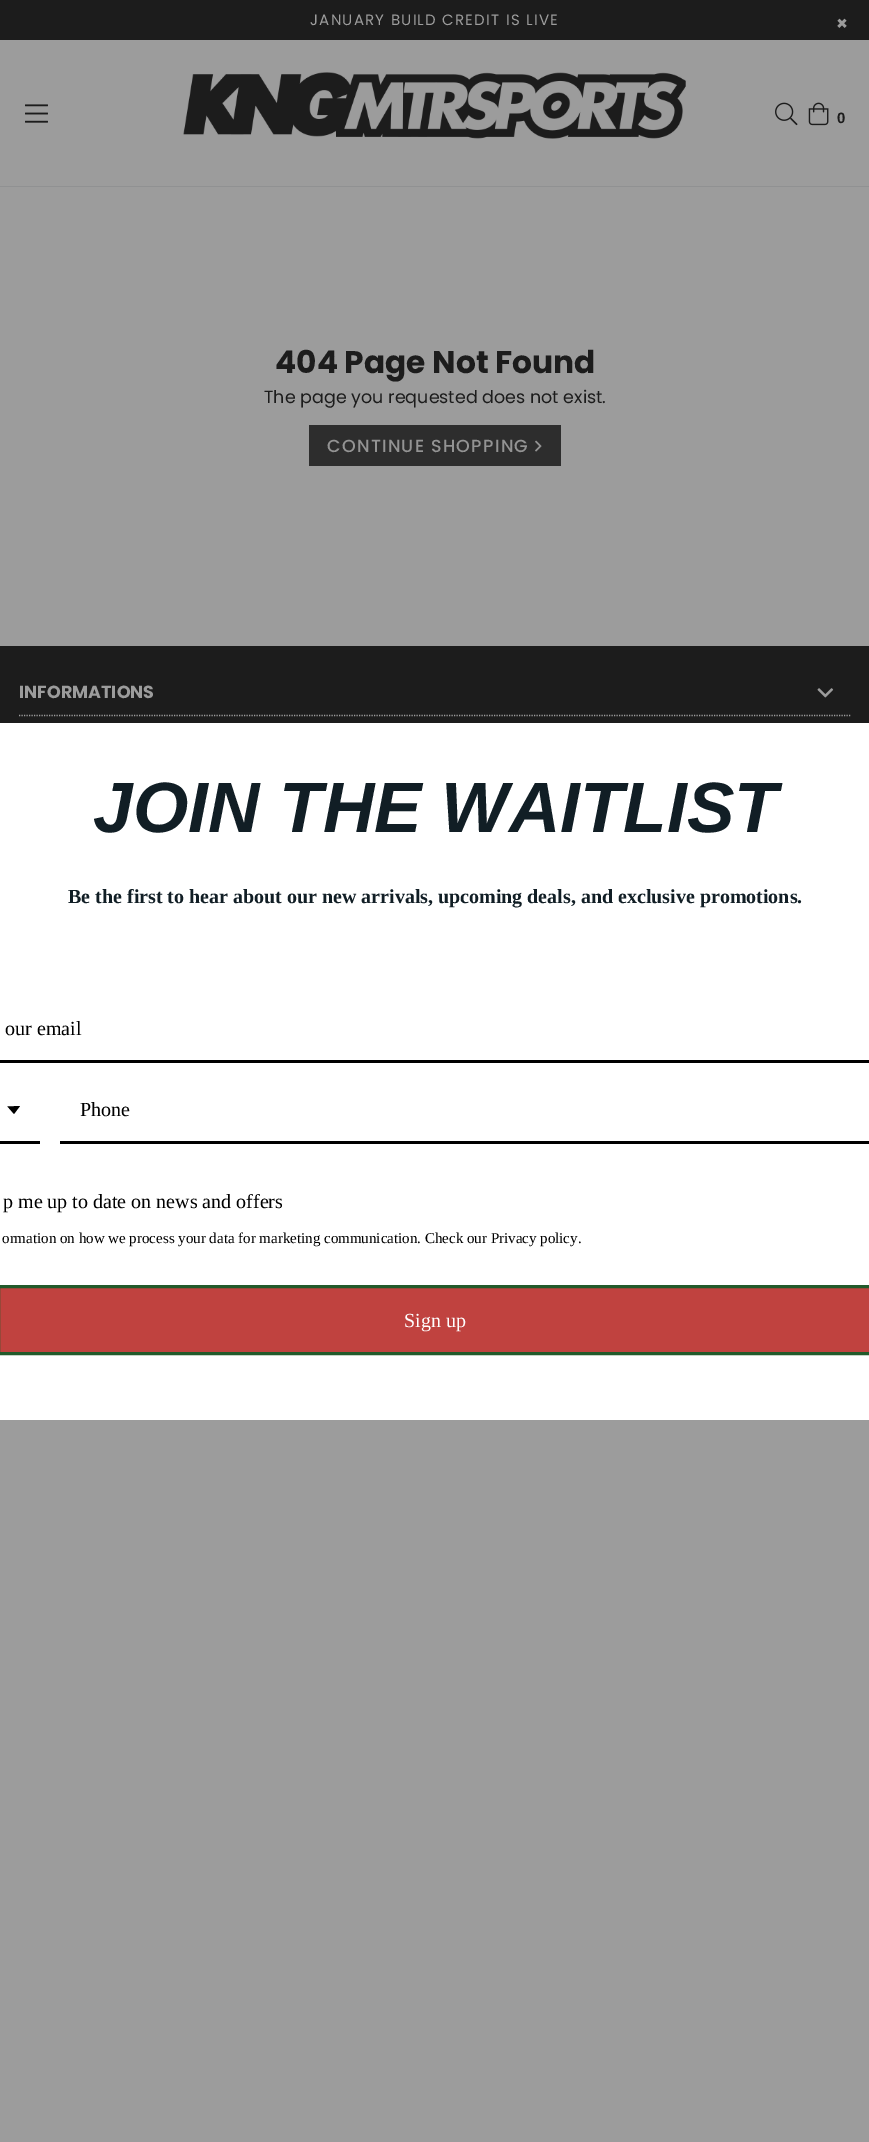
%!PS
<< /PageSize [869 2142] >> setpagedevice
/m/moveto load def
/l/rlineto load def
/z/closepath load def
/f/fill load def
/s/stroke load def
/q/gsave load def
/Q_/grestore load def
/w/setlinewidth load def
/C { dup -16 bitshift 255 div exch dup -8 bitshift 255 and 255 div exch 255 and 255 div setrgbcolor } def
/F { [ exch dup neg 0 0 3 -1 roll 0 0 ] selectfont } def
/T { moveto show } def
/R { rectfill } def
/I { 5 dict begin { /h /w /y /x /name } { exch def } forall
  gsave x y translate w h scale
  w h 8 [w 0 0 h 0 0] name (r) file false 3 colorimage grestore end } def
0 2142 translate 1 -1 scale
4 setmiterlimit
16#9C9C9C C
0 0 869 2142 R
16#1C1C1C C
0 0 869 40 R
/Poppins-Regular 15 F
16#9C9C9C C
310 25 m 1.25 0 (JANUARY BUILD CREDIT IS LIVE) ashow
/Poppins-Bold 19 F
(×) 836 30 T
16#909192 C
0 186 869 1 R
(1.rgb) 25 104 23 19 I
(2.rgb) 183 72 503 67 I
(3.rgb) 775 102 23 24 I
(4.rgb) 808 102 21 24 I
/LiberationSans-Bold 15 F
16#1C1C1C C
(0) 837 123 T
/Poppins-Bold 31.25 F
(404 Page Not Found) 275 373 T
/Poppins-Regular 17.5 F
(The page you requested does not exist.) 264 403 T
16#2D2D2D C
309 425 252 41 R
/Poppins-Medium 17.5 F
16#939393 C
327 452 m 1.25 0 (CONTINUE SHOPPING) ashow
(5.rgb) 535 440 7 12 I
16#1C1C1C C
0 646 869 77 R
16#9C9C9C C
1.2 w
[1.25 1.25] 0 setdash
19 715.5 m 832 0 l s
/Poppins-Bold 17.5 F
(INFORMATIONS) 19 698 T
(6.rgb) 817 688 17 10 I
16#FFFFFF C
0 723 869 697 R
/LiberationSans-BoldItalic 71.25 F
16#111E25 C
(JOIN THE WAITLIST) 93 832 T
/LiberationSerif-Bold 20 F
(Be the first to hear about our new arrivals, upcoming deals, and exclusive promotions.) 68 903 T
16#000000 C
0 1060 869 3 R
/LiberationSerif-Regular 20 F
(our email) 5 1035 T
0 1141 40 3 R
7.5 1106.5 m 12.5 -.5 l -6 8 l z eofill
60 1141 809 3 R
(Phone) 80 1116 T
(p me up to date on news and offers) 3 1208 T
/LiberationSerif-Regular 15 F
(ormation on how we process your data for marketing communication. Check our Privacy policy.) 2 1243 T
16#C0423F C
-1.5 1286.5 m 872 0 l 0 67 l -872 0 l z q f Q_
16#225A2B C
3 w
[] 0 setdash
s
/LiberationSerif-Regular 20 F
16#FFFFFF C
(Sign up) 404 1327 T
showpage
